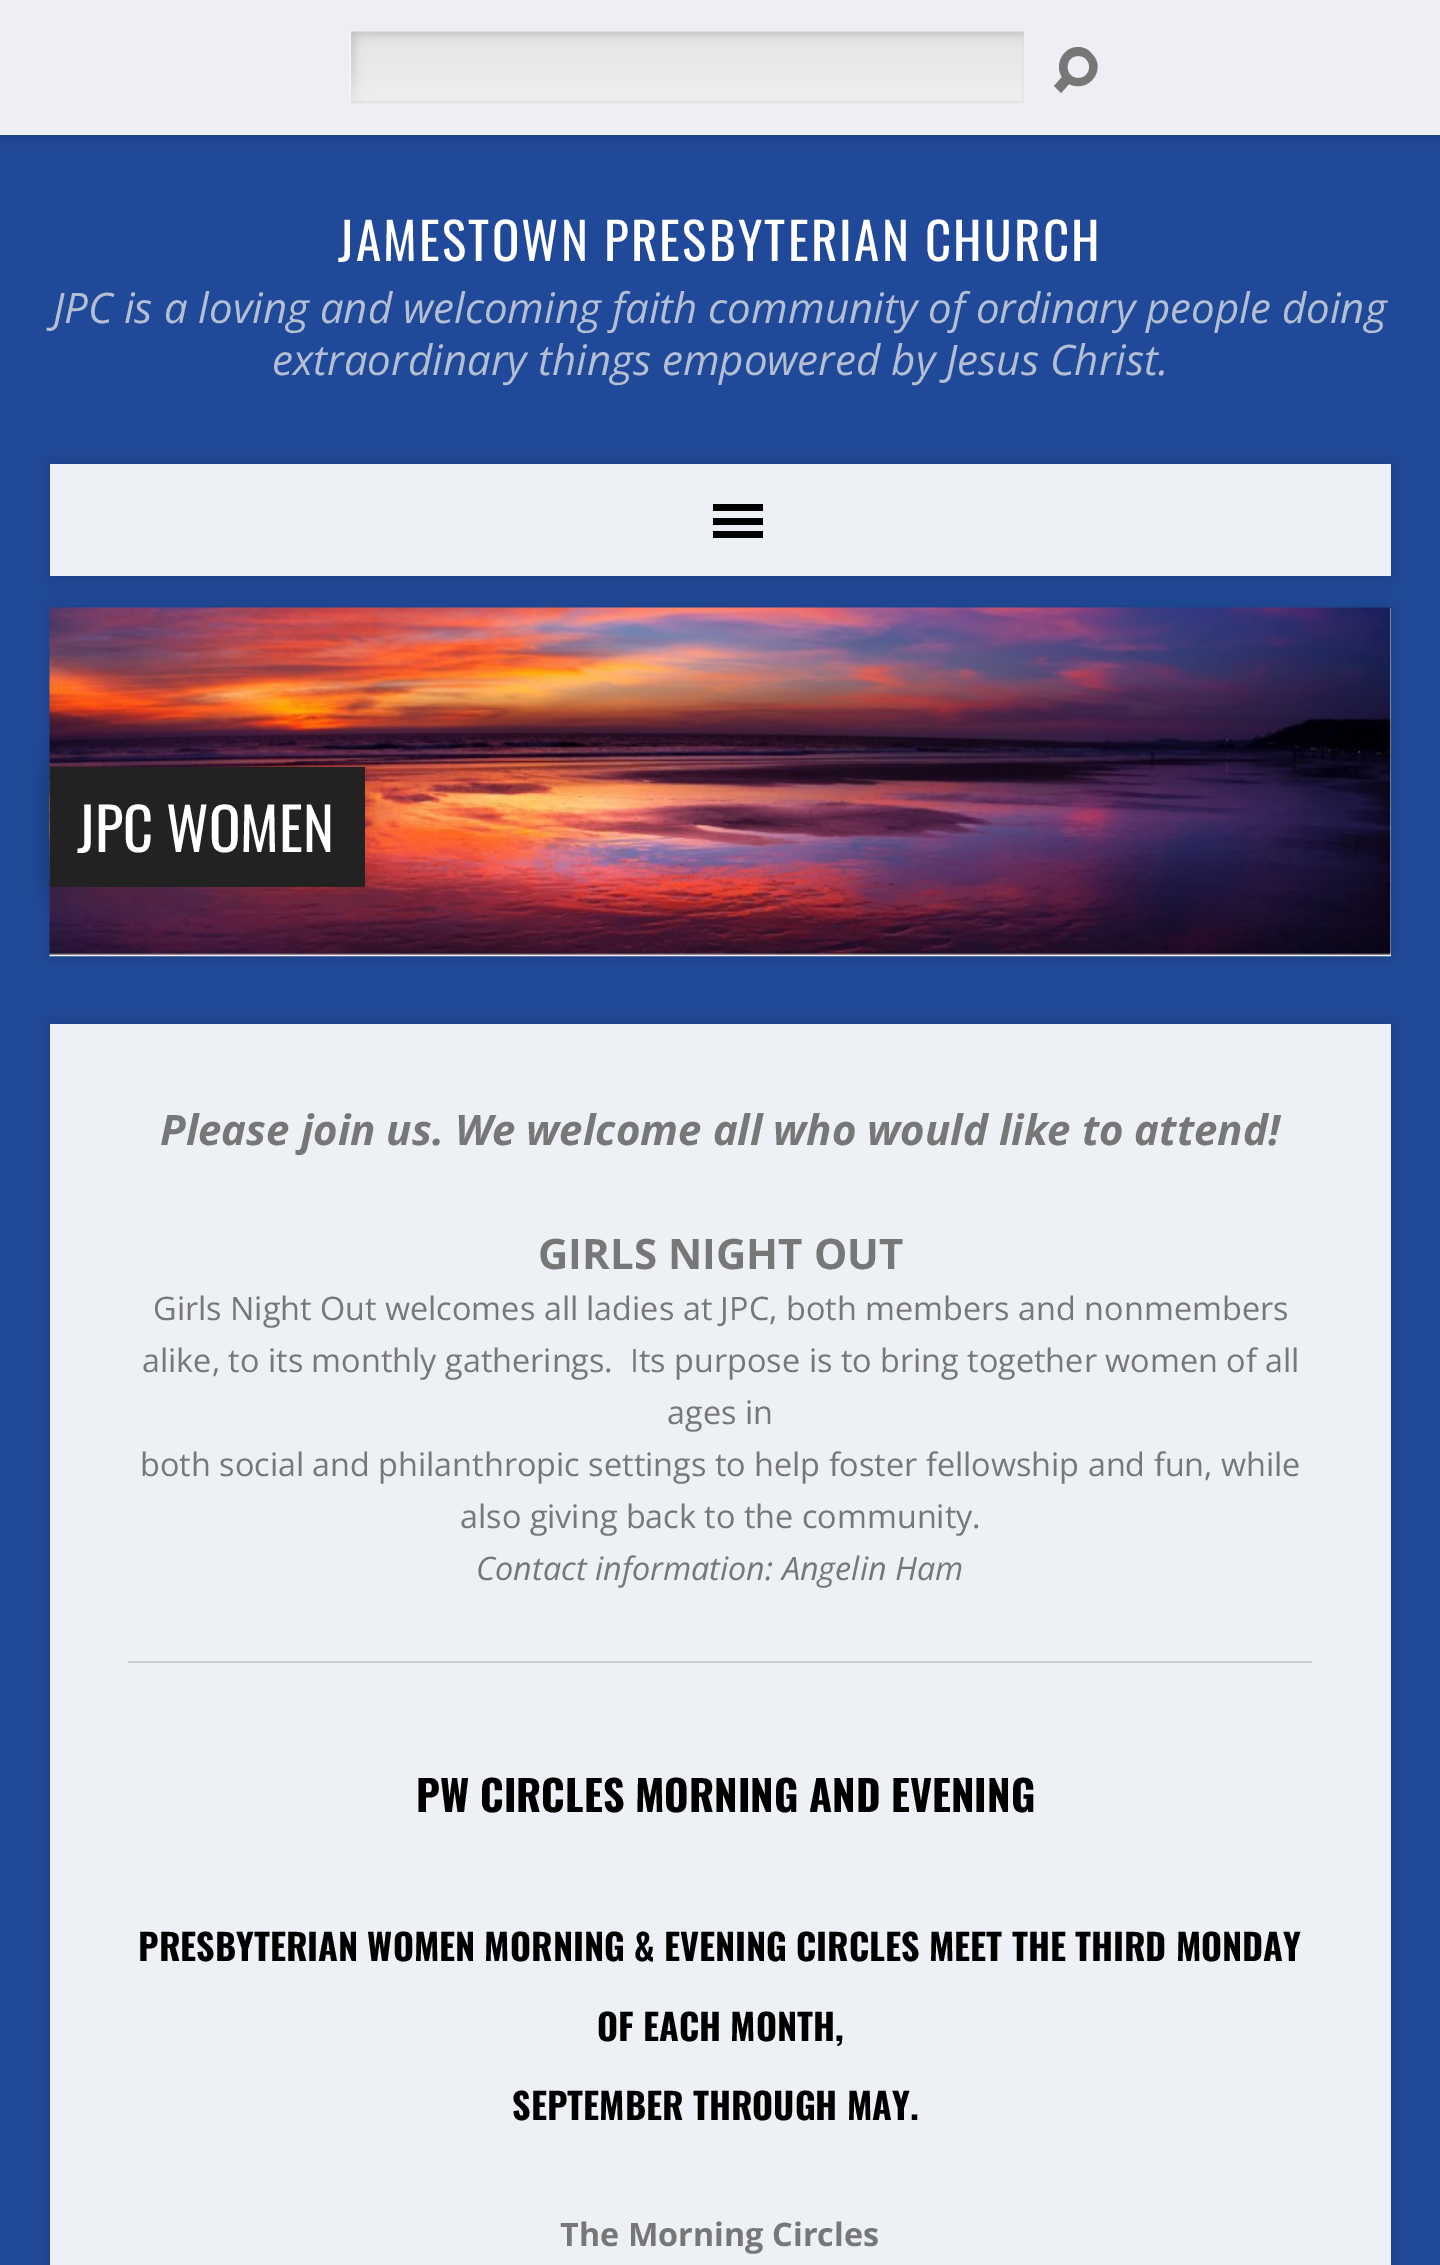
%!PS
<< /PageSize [1440 2265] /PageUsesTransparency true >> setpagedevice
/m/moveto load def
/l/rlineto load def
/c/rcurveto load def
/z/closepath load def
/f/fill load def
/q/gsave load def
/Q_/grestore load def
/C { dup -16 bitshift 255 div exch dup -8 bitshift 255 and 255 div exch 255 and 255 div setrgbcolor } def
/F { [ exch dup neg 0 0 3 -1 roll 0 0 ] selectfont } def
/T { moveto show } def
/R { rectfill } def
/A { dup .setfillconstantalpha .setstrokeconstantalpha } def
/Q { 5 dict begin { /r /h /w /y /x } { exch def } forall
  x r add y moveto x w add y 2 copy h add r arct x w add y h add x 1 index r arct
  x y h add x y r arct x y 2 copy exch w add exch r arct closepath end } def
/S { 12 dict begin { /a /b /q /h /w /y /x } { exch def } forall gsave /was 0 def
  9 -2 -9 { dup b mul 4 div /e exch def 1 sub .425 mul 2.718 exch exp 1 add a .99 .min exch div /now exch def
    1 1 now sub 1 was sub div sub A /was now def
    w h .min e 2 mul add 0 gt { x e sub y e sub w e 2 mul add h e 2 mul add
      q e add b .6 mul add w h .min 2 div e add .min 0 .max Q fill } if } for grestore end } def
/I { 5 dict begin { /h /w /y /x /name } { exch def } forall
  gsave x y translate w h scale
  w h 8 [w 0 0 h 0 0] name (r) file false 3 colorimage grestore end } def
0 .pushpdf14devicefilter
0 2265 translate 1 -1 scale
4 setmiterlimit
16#204A99 C
0 0 1440 2265 R
16#000000 C
0 0 1440 135 0 11 .15 S
16#EDEFF4 C
0 0 1440 135 R
16#FFFFFF C
349 32 675 72 R
(1.rgb) 351 31 673 73 I
0.1 A
16#969696 C
1024 32 m 0 72 l -2 -3 l 0 -69 l z f
1024 104 m -675 0 l 2 -3 l 671 0 l z f
349 104 m 0 -72 l 2 0 l 0 69 l z f
1 A
16#777777 C
1078 47 m -15 0 -24 18 -16 30 c -8 9 l 7 7 l 8 -9 l 20 10 39 -16 22 -31 c -3 -4 -8 -6 -13 -6 c z 1078 56 m 15 0 15 22 0 22 c -14 0 -14 -22 0 -22 c z f
/Oswald-Regular 51 F
16#FFFFFF C
338 261 m 2.25 0 (JAMESTOWN PRESBYTERIAN CHURCH) ashow
/OpenSans-Italic 42.1 F
16#B5BFD3 C
(JPC is a loving and welcoming faith community of ordinary people doing) 53 323 T
(extraordinary things empowered by Jesus Christ.) 272 375 T
q
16 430 m 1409 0 l 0 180 l -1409 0 l z 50 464 m 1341 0 l 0 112 l -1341 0 l z eoclip newpath
16#000000 C
50 464 1341 112 0 11 .15 S
Q_
0.94 A
16#FAFAFA C
50 464 1341 112 R
1 A
16#000000 C
713 504 50 7 R
713 518 50 7 R
713 531 50 7 R
50 608 1341 348 0 11 .15 S
0.94 A
16#FAFAFA C
1390 608 1 348 R
1 A
(2.rgb) 49 607 1342 350 I
16#000000 C
50 767 315 120 0 16 .15 S
16#222222 C
50 767 315 120 R
/Oswald-Regular 58.5 F
16#FFFFFF C
(JPC WOMEN) 77 852 T
q
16 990 m 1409 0 l 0 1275 l -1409 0 l z 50 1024 m 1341 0 l 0 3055 l -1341 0 l z eoclip newpath
16#000000 C
50 1024 1341 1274 0 11 .15 S
Q_
0.94 A
16#FAFAFA C
50 1024 1341 1241 R
/OpenSans-BoldItalic 42 F
1 A
16#777777 C
(Please join us. We welcome all who would like to attend!) 160 1145 T
/OpenSans-Bold 42 F
(GIRLS NIGHT OUT) 538 1269 T
/OpenSans-Regular 32.4 F
(Girls Night Out welcomes all ladies at JPC, both members and nonmembers) 153 1320 T
(alike, to its monthly gatherings.  Its purpose is to bring together women of all) 142 1372 T
(ages in) 667 1424 T
(both social and philanthropic settings to help foster fellowship and fun, while) 140 1476 T
(also giving back to the community.) 460 1528 T
/OpenSans-Italic 32.4 F
(Contact information: Angelin Ham) 476 1580 T
16#CCCCCC C
128 1661 1184 2 R
/Oswald-Bold 42 F
16#000000 C
(PW CIRCLES MORNING AND EVENING) 416 1812 T
/Oswald-Bold 36 F
(PRESBYTERIAN WOMEN MORNING & EVENING CIRCLES MEET THE THIRD MONDAY) 138 1961 T
(OF EACH MONTH,) 597 2041 T
(SEPTEMBER THROUGH MAY.) 512 2120 T
/OpenSans-Bold 32.4 F
16#777777 C
(The Morning Circles) 560 2246 T
.poppdf14devicefilter showpage
